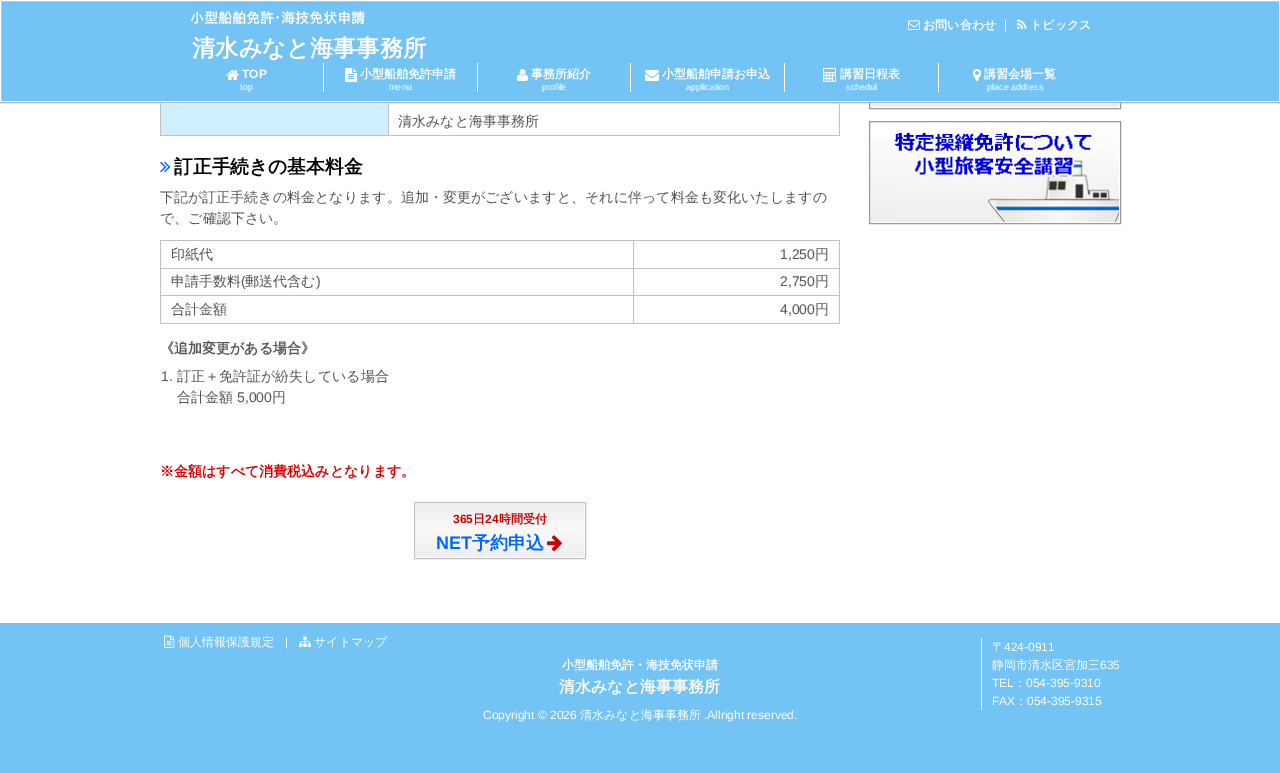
%!PS
<< /PageSize [1280 773] >> setpagedevice
/m/moveto load def
/l/rlineto load def
/z/closepath load def
/f/fill load def
/s/stroke load def
/q/gsave load def
/Q_/grestore load def
/C { dup -16 bitshift 255 div exch dup -8 bitshift 255 and 255 div exch 255 and 255 div setrgbcolor } def
/F { [ exch dup neg 0 0 3 -1 roll 0 0 ] selectfont } def
/T { moveto show } def
/R { rectfill } def
/I { 5 dict begin { /h /w /y /x /name } { exch def } forall
  gsave x y translate w h scale
  w h 8 [w 0 0 h 0 0] name (r) file false 3 colorimage grestore end } def
0 773 translate 1 -1 scale
4 setmiterlimit
16#FFFFFF C
0 0 1280 773 R
16#73C3F5 C
0 623 1280 150 R
16#999999 C
869.5 6.5 251 102 rectstroke
-.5 -.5 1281 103 rectstroke
16#73C3F5 C
.5 .5 m 1279 0 l 0 101 l -1279 0 l z q f Q_
16#FFFFFF C
s
/IPAPGothic-Bold 14 F
(小型船舶免許･海技免状申請) 190 23 T
(1.rgb) 908 20 12 10 I
/WenQuanYiZenHei-Bold 12 F
(お問い合わせ) 923 29 T
/LiberationSans-Regular 12 F
(|) 1004 29 T
(2.rgb) 1017 19 10 10 I
/WenQuanYiZenHei-Bold 12 F
(トピックス) 1030 29 T
/WenQuanYiZenHei-Bold 23.25 F
(清水みなと海事事務所) 192 56 T
(3.rgb) 226 70 13 10 I
/LiberationSans-Bold 12 F
(TOP) 242 78 T
/LiberationSans-Regular 9 F
(top) 240 90 T
323 63 1 29 R
(4.rgb) 345 68 12 14 I
/WenQuanYiZenHei-Bold 12 F
(小型船舶免許申請) 360 78 T
/LiberationSans-Regular 9 F
(menu) 389 90 T
477 63 1 29 R
(5.rgb) 517 69 11 12 I
/WenQuanYiZenHei-Bold 12 F
(事務所紹介) 531 78 T
/LiberationSans-Regular 9 F
(profile) 542 90 T
630 63 1 29 R
(6.rgb) 645 70 14 11 I
/WenQuanYiZenHei-Bold 12 F
(小型船舶申請お申込) 662 78 T
/LiberationSans-Regular 9 F
(application) 686 90 T
784 63 1 29 R
(7.rgb) 823 68 13 14 I
/WenQuanYiZenHei-Bold 12 F
(講習日程表) 840 78 T
/LiberationSans-Regular 9 F
(schedul) 846 90 T
938 63 1 29 R
(8.rgb) 973 69 8 12 I
/WenQuanYiZenHei-Bold 12 F
(講習会場一覧) 984 78 T
/LiberationSans-Regular 9 F
(place address) 987 90 T
16#D0EFFF C
161 103 227 32 R
16#C0C0C0 C
839 103 1 33 R
388 135 452 1 R
388 103 1 33 R
160 135 229 1 R
160 103 1 33 R
/WenQuanYiZenHei-Medium 14 F
16#555555 C
(清水みなと海事事務所) 398 126 T
(9.rgb) 160 161 11 12 I
/WenQuanYiZenHei-Bold 18.75 F
16#000000 C
(訂正手続きの基本料金) 174 173 T
/WenQuanYiZenHei-Medium 14 F
16#555555 C
(下記が訂正手続きの料金となります。追加・変更がございますと、それに伴って料金も変化いたしますの) 160 202 T
(で、ご確認下さい。) 160 223 T
16#C0C0C0 C
633 240 207 1 R
633 268 207 1 R
633 295 207 1 R
839 295 1 29 R
633 323 207 1 R
633 295 1 29 R
160 295 474 1 R
633 268 1 28 R
160 268 474 1 R
633 240 1 29 R
160 240 474 1 R
160 323 474 1 R
160 295 1 29 R
160 268 1 28 R
160 240 1 29 R
16#555555 C
(印紙代) 171 259 T
16#C0C0C0 C
839 268 1 28 R
839 240 1 29 R
/LiberationSans-Regular 14 F
16#555555 C
(1,250) 780 259 T
/WenQuanYiZenHei-Medium 14 F
(円) 815 259 T
(申請手数料) 171 286 T
/LiberationSans-Regular 14 F
(\() 241 286 T
/WenQuanYiZenHei-Medium 14 F
(郵送代含む) 245 286 T
/LiberationSans-Regular 14 F
(\)) 316 286 T
(2,750) 780 286 T
/WenQuanYiZenHei-Medium 14 F
(円) 815 286 T
(合計金額) 171 314 T
/LiberationSans-Regular 14 F
(4,000) 780 314 T
/WenQuanYiZenHei-Medium 14 F
(円) 815 314 T
/WenQuanYiZenHei-Bold 14 F
(《追加変更がある場合》) 160 353 T
/LiberationSans-Regular 14 F
(1.) 161 381 T
/WenQuanYiZenHei-Medium 14 F
(訂正＋免許証が紛失している場合) 177 381 T
(合計金額) 177 402 T
/LiberationSans-Regular 14 F
(5,000) 237 402 T
/WenQuanYiZenHei-Medium 14 F
(円) 272 402 T
/WenQuanYiZenHei-Bold 14 F
16#DD0000 C
(※金額はすべて消費税込みとなります。) 160 476 T
16#C0C0C0 C
414.5 502.5 171 56 rectstroke
q 416 504 m 168 0 l 0 53 l -168 0 l z clip newpath
<< /ShadingType 2 /ColorSpace /DeviceRGB /Coords [500 504 500 557] /Extend [true true] /Function << /FunctionType 3 /Domain [0 1] /Functions [<< /FunctionType 2 /Domain [0 1] /C0 [.933 .933 .933] /C1 [.976 .976 .976] /N 1 >> << /FunctionType 2 /Domain [0 1] /C0 [.976 .976 .976] /C1 [.933 .933 .933] /N 1 >>] /Bounds [.5] /Encode [0 1 0 1] >> >> shfill Q_
/LiberationSans-Bold 12 F
16#CC0000 C
(365) 453 523 T
/WenQuanYiZenHei-Bold 12 F
(日) 473 523 T
/LiberationSans-Bold 12 F
(24) 485 523 T
/WenQuanYiZenHei-Bold 12 F
(時間受付) 499 523 T
/LiberationSans-Bold 18 F
16#0066FF C
(NET) 436 549 T
/WenQuanYiZenHei-Bold 18 F
(予約申込) 472 549 T
(10.rgb) 547 535 15 16 I
q 871 103 m 248 0 l 0 4 l -248 0 l z clip newpath
<< /ShadingType 2 /ColorSpace /DeviceRGB /Coords [995 8 995 107] /Extend [true true] /Function << /FunctionType 2 /Domain [0 1] /C0 [1 1 1] /C1 [.933 .933 .933] /N 1 >> >> shfill Q_
16#999999 C
869.5 121.5 251 102 rectstroke
q 871 138 m 248 0 l 0 84 l -248 0 l z clip newpath
<< /ShadingType 2 /ColorSpace /DeviceRGB /Coords [995 123 995 222] /Extend [true true] /Function << /FunctionType 2 /Domain [0 1] /C0 [1 1 1] /C1 [.933 .933 .933] /N 1 >> >> shfill Q_
(11.rgb) 894 132 225 90 I
(12.rgb) 164 635 11 13 I
/WenQuanYiZenHei-Medium 12 F
16#FFFFFF C
(個人情報保護規定) 178 646 T
/LiberationSans-Regular 12 F
(|) 285 646 T
(13.rgb) 299 636 12 11 I
/WenQuanYiZenHei-Medium 12 F
(サイトマップ) 314 646 T
/WenQuanYiZenHei-Bold 12 F
(小型船舶免許・海技免状申請) 562 669 T
981 638 1 72 R
/WenQuanYiZenHei-Medium 12 F
(〒) 992 651 T
/LiberationSans-Regular 12 F
(424-0911) 1004 651 T
/WenQuanYiZenHei-Medium 12 F
(静岡市清水区宮加三) 992 669 T
/LiberationSans-Regular 12 F
(635) 1100 669 T
(TEL) 992 687 T
/WenQuanYiZenHei-Medium 12 F
(：) 1014 687 T
/LiberationSans-Regular 12 F
(054-395-9310) 1026 687 T
(FAX) 992 705 T
/WenQuanYiZenHei-Medium 12 F
(：) 1015 705 T
/LiberationSans-Regular 12 F
(054-395-9315) 1027 705 T
/WenQuanYiZenHei-Bold 16 F
(清水みなと海事事務所) 559 692 T
/LiberationSans-Regular 12 F
(Copyright © 2026) 483 719 T
/WenQuanYiZenHei-Medium 12 F
(清水みなと海事事務所) 580 719 T
/LiberationSans-Regular 12 F
(.Allright reserved.) 704 719 T
showpage
